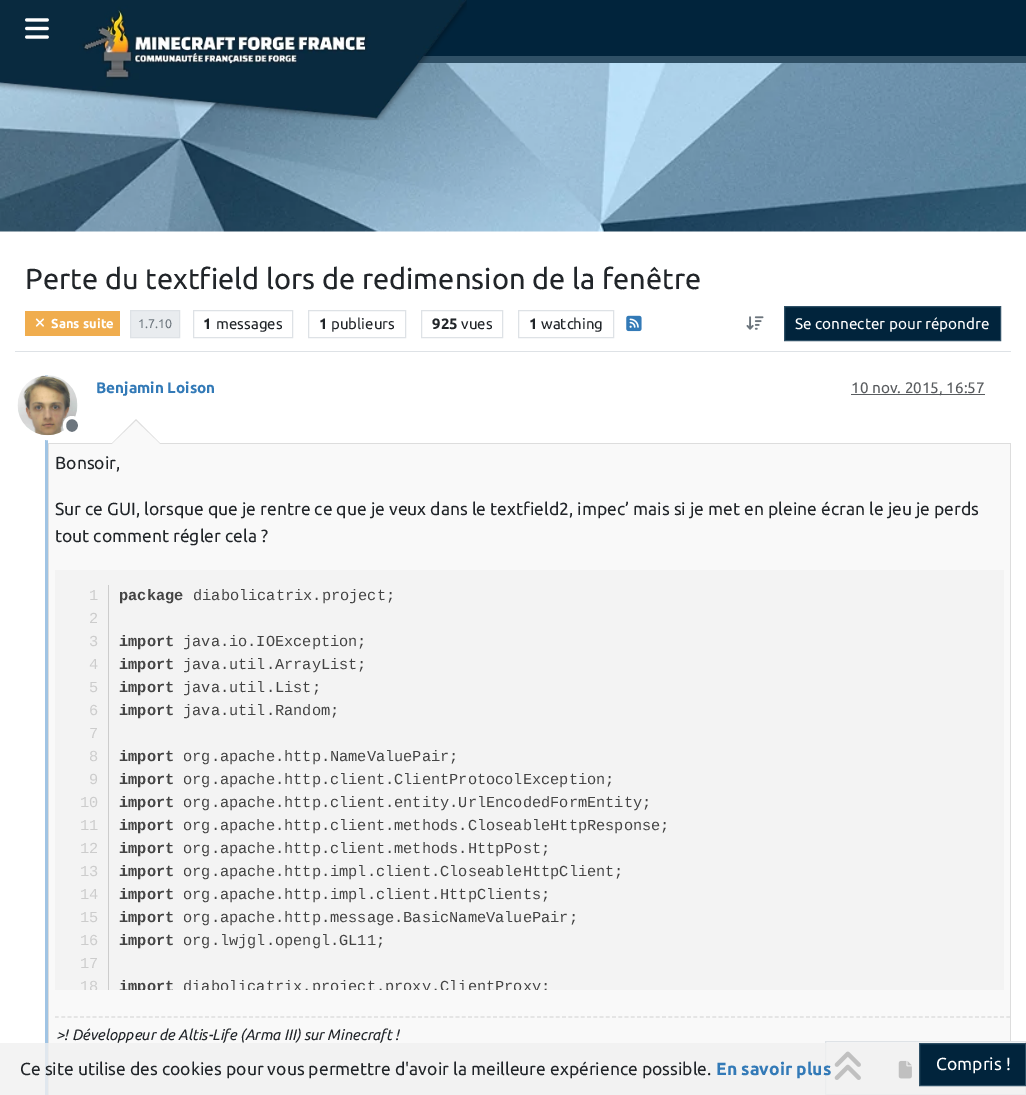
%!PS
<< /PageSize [1026 1095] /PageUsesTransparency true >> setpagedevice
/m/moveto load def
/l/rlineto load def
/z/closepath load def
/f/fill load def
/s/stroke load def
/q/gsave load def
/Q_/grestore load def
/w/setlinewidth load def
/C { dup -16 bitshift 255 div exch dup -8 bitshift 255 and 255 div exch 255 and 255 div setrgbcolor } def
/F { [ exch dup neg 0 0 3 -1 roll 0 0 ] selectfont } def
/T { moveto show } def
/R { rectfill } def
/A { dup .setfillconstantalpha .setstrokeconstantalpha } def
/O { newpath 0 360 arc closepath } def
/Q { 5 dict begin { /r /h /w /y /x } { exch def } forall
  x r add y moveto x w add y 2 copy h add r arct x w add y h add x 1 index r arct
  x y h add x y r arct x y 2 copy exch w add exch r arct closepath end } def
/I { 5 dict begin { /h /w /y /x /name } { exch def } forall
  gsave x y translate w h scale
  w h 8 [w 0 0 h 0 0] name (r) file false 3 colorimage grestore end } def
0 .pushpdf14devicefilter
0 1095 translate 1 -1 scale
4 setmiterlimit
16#FFFFFF C
0 0 1026 1095 R
16#01243C C
423 0 603 56 R
16#2F5066 C
417 56 609 7 R
(3.rgb) 0 63 1026 169 I
(1.rgb) 0 0 467 121 I
(2.rgb) 25 18 24 21 I
16#DEE2E6 C
15 351 996 1 R
/Ubuntu-Regular 29 F
16#212529 C
(Perte du textfield lors de redimension de la fenêtre) 25 289 T
16#F0AD4E C
25 311 95 25 R
(4.rgb) 35 318 9 9 I
/Ubuntu-Bold 13 F
16#FFFFFF C
(Sans suite) 51 328 T
16#E9ECEF C
130.5 310.5 m 49 0 l 0 27 l -49 0 l z q f Q_
16#DEE2E6 C
s
/Ubuntu-Regular 12.5 F
16#6C757D C
(1.7.10) 138 328 T
16#DEE2E6 C
193.5 310.5 99 27 rectstroke
/Ubuntu-Bold 15 F
16#212529 C
(1) 203 329 T
/Ubuntu-Regular 15 F
(messages) 216 329 T
16#DEE2E6 C
308.5 310.5 97 27 rectstroke
/Ubuntu-Bold 15 F
16#212529 C
(1) 319 329 T
/Ubuntu-Regular 15 F
(publieurs) 331 329 T
16#DEE2E6 C
421.5 310.5 81 27 rectstroke
/Ubuntu-Bold 15 F
16#212529 C
(925) 432 329 T
/Ubuntu-Regular 15 F
(vues) 461 329 T
16#DEE2E6 C
518.5 310.5 95 27 rectstroke
/Ubuntu-Bold 15 F
16#212529 C
(1) 529 329 T
/Ubuntu-Regular 15 F
(watching) 541 329 T
(5.rgb) 626 315 16 17 I
(6.rgb) 746 316 18 14 I
16#01243C C
784.5 306.5 m 216 0 l 0 34 l -216 0 l z q f Q_
16#2F5066 C
s
/Ubuntu-Regular 15.3 F
16#FFFFFF C
(Se connecter pour répondre) 795 329 T
16#A0C4E4 C
45 373 3 722 R
16#FFFFFF C
5 w
48 405 32.5 O s
(7.rgb) 17 375 61 61 I
16#6C757D C
64.5 417.5 15 16 7.5 Q q f Q_
16#FFFFFF C
3 w
s
/Ubuntu-Bold 15.3 F
16#337AB7 C
(Benjamin Loison) 96 393 T
16#595C5F C
851 394 134 1 R
/Ubuntu-Regular 15.3 F
16#585B5E C
(10 nov. 2015, 16:57) 851 393 T
16#DDDDDD C
48 443 963 1 R
1010 443 1 573 R
48 443 1 573 R
161 444 m -50 0 l 25 -25 l z f
16#F9F9F9 C
160 444 m -48 0 l 24 -23 l z f
49 444 961 651 R
/Ubuntu-Regular 17.5 F
16#212529 C
(Bonsoir,) 55 469 T
(Sur ce GUI, lorsque que je rentre ce que je veux dans le textfield2, impec’ mais si je met en pleine écran le jeu je perds) 55 515 T
(tout comment régler cela ?) 55 542 T
16#F3F3F3 C
55 570 949 420 R
/LiberationMono-Regular 15.3 F
16#CCCCCC C
(1) 89 600 T
/LiberationMono-Bold 15.3 F
16#444444 C
(package) 119 600 T
/LiberationMono-Regular 15.3 F
(diabolicatrix.project;) 193 600 T
16#CCCCCC C
(2) 89 623 T
(3) 89 646 T
/LiberationMono-Bold 15.3 F
16#444444 C
(import) 119 646 T
/LiberationMono-Regular 15.3 F
(java.io.IOException;) 183 646 T
16#CCCCCC C
(4) 89 669 T
/LiberationMono-Bold 15.3 F
16#444444 C
(import) 119 669 T
/LiberationMono-Regular 15.3 F
(java.util.ArrayList;) 183 669 T
16#CCCCCC C
(5) 89 692 T
/LiberationMono-Bold 15.3 F
16#444444 C
(import) 119 692 T
/LiberationMono-Regular 15.3 F
(java.util.List;) 183 692 T
16#CCCCCC C
(6) 89 715 T
/LiberationMono-Bold 15.3 F
16#444444 C
(import) 119 715 T
/LiberationMono-Regular 15.3 F
(java.util.Random;) 183 715 T
16#CCCCCC C
(7) 89 738 T
(8) 89 761 T
/LiberationMono-Bold 15.3 F
16#444444 C
(import) 119 761 T
/LiberationMono-Regular 15.3 F
(org.apache.http.NameValuePair;) 183 761 T
16#CCCCCC C
(9) 89 784 T
/LiberationMono-Bold 15.3 F
16#444444 C
(import) 119 784 T
/LiberationMono-Regular 15.3 F
(org.apache.http.client.ClientProtocolException;) 183 784 T
16#CCCCCC C
(10) 80 807 T
/LiberationMono-Bold 15.3 F
16#444444 C
(import) 119 807 T
/LiberationMono-Regular 15.3 F
(org.apache.http.client.entity.UrlEncodedFormEntity;) 183 807 T
16#CCCCCC C
(11) 80 830 T
/LiberationMono-Bold 15.3 F
16#444444 C
(import) 119 830 T
/LiberationMono-Regular 15.3 F
(org.apache.http.client.methods.CloseableHttpResponse;) 183 830 T
16#CCCCCC C
(12) 80 853 T
/LiberationMono-Bold 15.3 F
16#444444 C
(import) 119 853 T
/LiberationMono-Regular 15.3 F
(org.apache.http.client.methods.HttpPost;) 183 853 T
16#CCCCCC C
(13) 80 876 T
/LiberationMono-Bold 15.3 F
16#444444 C
(import) 119 876 T
/LiberationMono-Regular 15.3 F
(org.apache.http.impl.client.CloseableHttpClient;) 183 876 T
16#CCCCCC C
(14) 80 899 T
/LiberationMono-Bold 15.3 F
16#444444 C
(import) 119 899 T
/LiberationMono-Regular 15.3 F
(org.apache.http.impl.client.HttpClients;) 183 899 T
16#CCCCCC C
(15) 80 922 T
/LiberationMono-Bold 15.3 F
16#444444 C
(import) 119 922 T
/LiberationMono-Regular 15.3 F
(org.apache.http.message.BasicNameValuePair;) 183 922 T
16#CCCCCC C
(16) 80 945 T
/LiberationMono-Bold 15.3 F
16#444444 C
(import) 119 945 T
/LiberationMono-Regular 15.3 F
(org.lwjgl.opengl.GL11;) 183 945 T
16#CCCCCC C
(17) 80 968 T
108 585 1 405 R
q
55 570 949 420 rectclip
(18) 80 991 T
/LiberationMono-Bold 15.3 F
16#444444 C
(import) 119 991 T
/LiberationMono-Regular 15.3 F
(diabolicatrix.project.proxy.ClientProxy;) 183 991 T
Q_
16#DDDDDD C
1010 1016 1 25 R
48 1016 1 79 R
16#DEDEDE C
1.2 w
[3.75 2.51] 0 setdash
55 1017 m 955 0 l s
/Ubuntu-Italic 15 F
16#212529 C
(>! Développeur de Altis-Life \(Arma III\) sur Minecraft !) 56 1040 T
16#F8F9FA C
1010 1042 15 52 R
16#DEE2E6 C
1 w
[] 0 setdash
825.5 1041.5 200 53 rectstroke
(8.rgb) 834 1051 27 29 I
(9.rgb) 898 1060 14 19 I
0.8 A
16#F0F0F0 C
0 1043 1026 52 R
/Ubuntu-Regular 17.5 F
1 A
16#212529 C
(Ce site utilise des cookies pour vous permettre d'avoir la meilleure expérience possible.) 20 1075 T
/Ubuntu-Bold 17.5 F
16#337AB7 C
(En savoir plus) 716 1075 T
16#01243C C
919.5 1043.5 m 106 0 l 0 42 l -106 0 l z q f Q_
16#2F5066 C
s
/Ubuntu-Regular 17.5 F
16#FFFFFF C
(Compris !) 936 1070 T
.poppdf14devicefilter showpage
